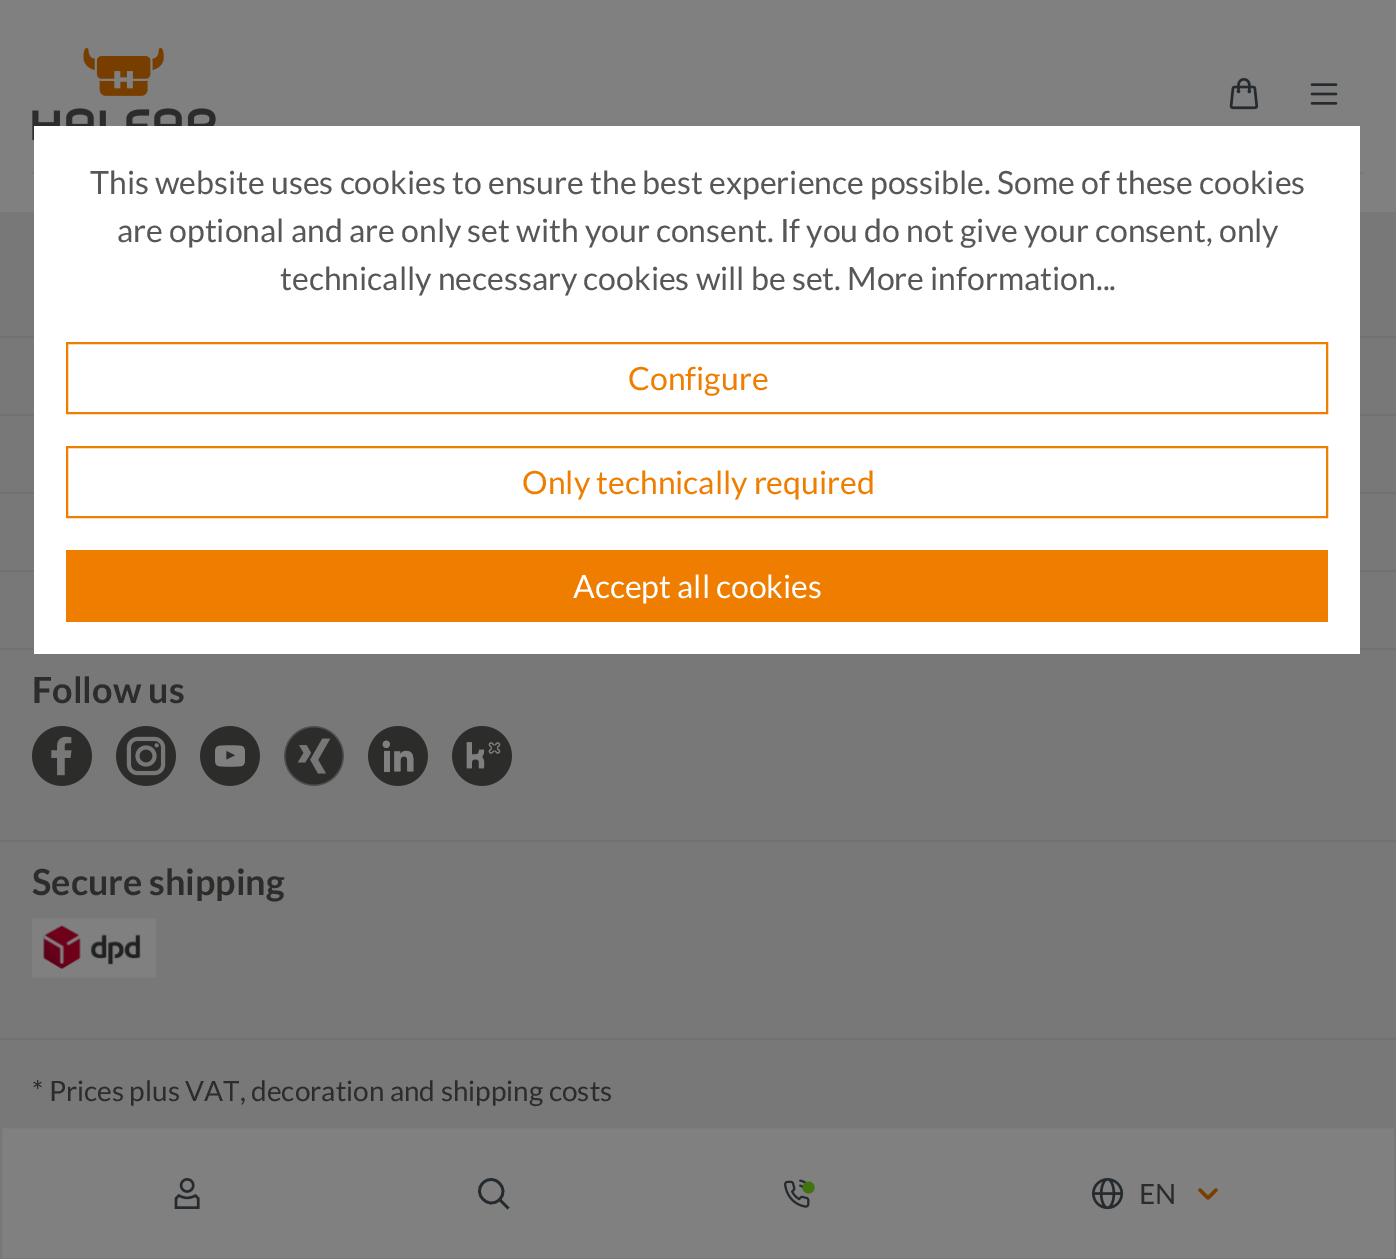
%!PS
<< /PageSize [1396 1259] >> setpagedevice
/m/moveto load def
/l/rlineto load def
/c/rcurveto load def
/z/closepath load def
/s/stroke load def
/w/setlinewidth load def
/C { dup -16 bitshift 255 div exch dup -8 bitshift 255 and 255 div exch 255 and 255 div setrgbcolor } def
/F { [ exch dup neg 0 0 3 -1 roll 0 0 ] selectfont } def
/T { moveto show } def
/R { rectfill } def
/I { 5 dict begin { /h /w /y /x /name } { exch def } forall
  gsave x y translate w h scale
  w h 8 [w 0 0 h 0 0] name (r) file false 3 colorimage grestore end } def
0 1259 translate 1 -1 scale
4 setmiterlimit
16#808080 C
0 0 1396 1259 R
16#787878 C
0 212 1396 914 R
16#717171 C
0 336 1396 2 R
0 414 1396 2 R
0 492 1396 2 R
0 570 1396 2 R
0 648 1396 2 R
16#787878 C
32 172 1332 2 R
(8.rgb) 32 48 184 92 I
16#FFFFFF C
34 126 1326 528 R
/Lato-Regular 32 F
16#575756 C
(This website uses cookies to ensure the best experience possible. Some of these cookies) 90 194 T
(are optional and are only set with your consent. If you do not give your consent, only) 117 242 T
(technically necessary cookies will be set. More information...) 280 290 T
16#EF7D00 C
2 w
67 343 1260 70 rectstroke
(Configure) 628 390 T
67 447 1260 70 rectstroke
(Only technically required) 522 494 T
66 550 1262 72 R
16#FFFFFF C
(Accept all cookies) 573 598 T
16#717171 C
0 840 1396 2 R
/Lato-Bold 36 F
16#2C2C2B C
(Follow us) 32 703 T
(1.rgb) 32 726 60 60 I
(2.rgb) 116 726 60 60 I
(3.rgb) 200 726 60 60 I
(4.rgb) 284 726 60 60 I
(5.rgb) 368 726 60 60 I
(6.rgb) 452 726 60 60 I
16#717171 C
0 1038 1396 2 R
16#2C2C2B C
(Secure shipping) 32 895 T
(7.rgb) 32 918 124 60 I
/Lato-Regular 28 F
(* Prices plus VAT, decoration and shipping costs) 32 1101 T
(9.rgb) 1229 78 29 32 I
(10.rgb) 1310 83 28 22 I
16#787878 C
1 1127 1394 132 rectstroke
(11.rgb) 174 1178 26 31 I
16#252A2E C
2.7 w
2 setlinecap
1 setlinejoin
507.5 1207.5 m -8 -8 l 499.5 1199.5 m 11 -11 -6 -27.5 -16.5 -16.5 c -11 10.5 5.5 27.5 16.5 16.5 c z s
(12.rgb) 784 1179 31 29 I
(13.rgb) 1092 1178 32 32 I
16#2C2C2B C
(EN) 1139 1204 T
16#783F00 C
3.2 w
1 setlinecap
1200 1190 m 8 8 l 8 -8 l s
showpage
